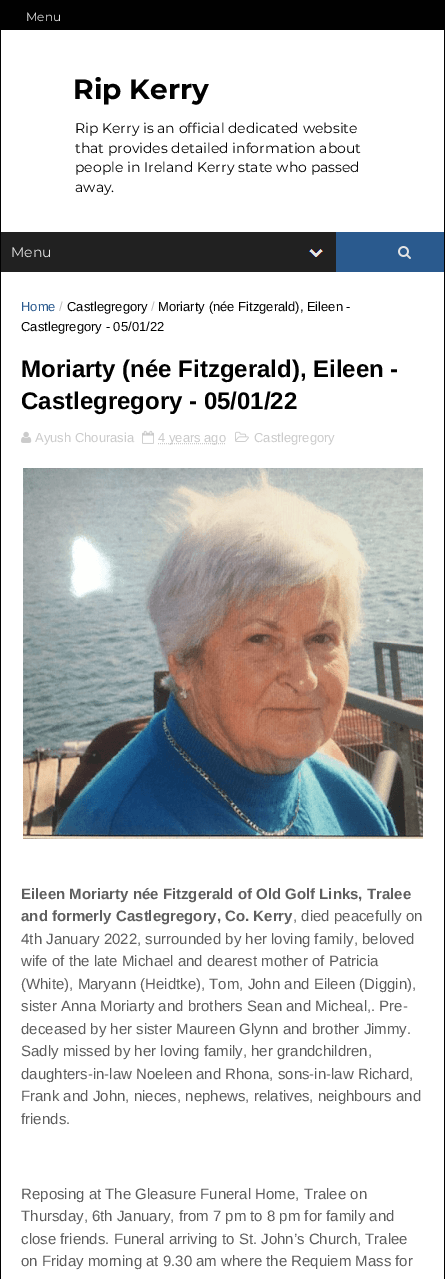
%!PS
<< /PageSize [445 1279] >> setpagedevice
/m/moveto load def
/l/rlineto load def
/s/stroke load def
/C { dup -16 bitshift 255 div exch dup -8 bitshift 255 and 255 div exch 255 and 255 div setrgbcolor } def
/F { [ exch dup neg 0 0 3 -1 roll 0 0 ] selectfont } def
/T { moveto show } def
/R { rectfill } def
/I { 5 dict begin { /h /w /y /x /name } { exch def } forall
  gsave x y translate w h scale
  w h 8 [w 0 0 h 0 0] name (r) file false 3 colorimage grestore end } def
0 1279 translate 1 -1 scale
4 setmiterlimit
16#FFFFFF C
0 0 445 1279 R
16#010101 C
444 0 1 1279 R
0 0 1 1279 R
1 0 443 30 R
/Montserrat-Regular 12 F
16#E4E4E4 C
(Menu) 26 21 T
/Montserrat-Bold 28 F
16#010101 C
(Rip Kerry) 73 99 T
/Montserrat-Regular 14 F
(Rip Kerry is an official dedicated website) 75 133 T
(that provides detailed information about) 75 153 T
(people in Ireland Kerry state who passed) 75 172 T
(away.) 75 192 T
16#2A5A8E C
336 232 108 40 R
16#212121 C
1 232 335 40 R
(1.rgb) 309 249 14 8 I
16#E4E4E4 C
(Menu) 11 257 T
(2.rgb) 398 246 13 13 I
/Arimo-Regular 13 F
16#2A5A8E C
(Home) 21 311 T
16#BDBDBD C
(/) 59 311 T
16#010101 C
(Castlegregory) 67 311 T
16#BDBDBD C
(/) 151 311 T
16#010101 C
(Moriarty \(née Fitzgerald\), Eileen -) 158 311 T
(Castlegregory - 05/01/22) 21 331 T
/Arimo-Bold 24 F
(Moriarty \(née Fitzgerald\), Eileen -) 21 377 T
(Castlegregory - 05/01/22) 21 409 T
(3.rgb) 21 431 11 12 I
/Arimo-Regular 13 F
16#CBCBCB C
(Ayush Chourasia) 35 442 T
(4.rgb) 142 430 12 14 I
[1 1] 0 setdash
158 443.5 m 68 0 l s
(4 years ago) 158 442 T
(5.rgb) 235 431 14 11 I
(Castlegregory) 254 442 T
(6.rgb) 23 468 400 371 I
/Arimo-Bold 15 F
16#5E5E5E C
(Eileen Moriarty née Fitzgerald of Old Golf Links, Tralee) 21 899 T
(and formerly Castlegregory, Co. Kerry) 21 921 T
/Arimo-Regular 15 F
(, died peacefully on) 293 921 T
(4th January 2022, surrounded by her loving family, beloved) 21 944 T
(wife of the late Michael and dearest mother of Patricia) 21 966 T
(\(White\), Maryann \(Heidtke\), Tom, John and Eileen \(Diggin\),) 21 989 T
(sister Anna Moriarty and brothers Sean and Micheal,. Pre-) 21 1011 T
(deceased by her sister Maureen Glynn and brother Jimmy.) 21 1034 T
(Sadly missed by her loving family, her grandchildren,) 21 1056 T
(daughters-in-law Noeleen and Rhona, sons-in-law Richard,) 21 1079 T
(Frank and John, nieces, nephews, relatives, neighbours and) 21 1101 T
(friends.) 21 1124 T
(Reposing at The Gleasure Funeral Home, Tralee on) 21 1199 T
(Thursday, 6th January, from 7 pm to 8 pm for family and) 21 1221 T
(close friends. Funeral arriving to St. John’s Church, Tralee) 21 1244 T
(on Friday morning at 9.30 am where the Requiem Mass for) 21 1266 T
showpage
